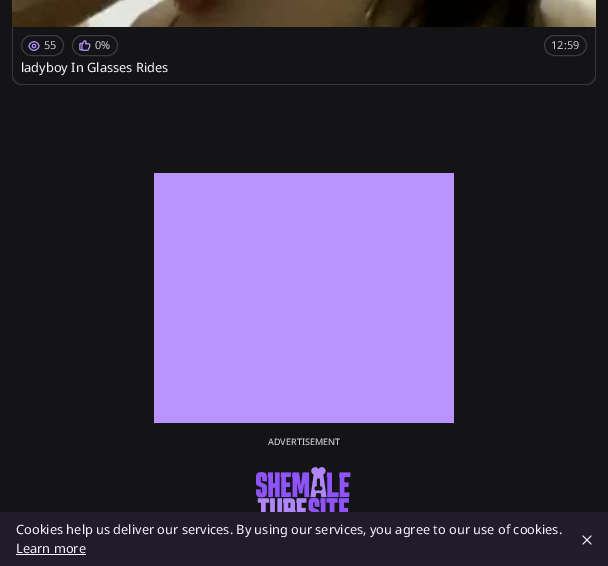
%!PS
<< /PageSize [608 566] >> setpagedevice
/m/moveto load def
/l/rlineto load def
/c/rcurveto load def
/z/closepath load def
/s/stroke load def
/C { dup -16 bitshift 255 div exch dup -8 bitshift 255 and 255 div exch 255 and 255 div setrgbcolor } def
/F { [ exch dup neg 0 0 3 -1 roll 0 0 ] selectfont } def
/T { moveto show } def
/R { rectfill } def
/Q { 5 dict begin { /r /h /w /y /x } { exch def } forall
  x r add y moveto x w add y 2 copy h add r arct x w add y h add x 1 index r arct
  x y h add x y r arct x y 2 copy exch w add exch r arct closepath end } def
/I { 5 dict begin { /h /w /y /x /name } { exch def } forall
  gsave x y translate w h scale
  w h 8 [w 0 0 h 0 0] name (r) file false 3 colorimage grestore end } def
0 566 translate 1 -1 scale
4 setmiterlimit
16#141315 C
0 0 608 566 R
(1.rgb) 12 0 584 27 I
16#373638 C
12 27 m 584 0 l 0 48 l 0 6 -4 10 -10 10 c -564 0 l -6 0 -10 -4 -10 -10 c z 13 27 m 582 0 l 0 48 l 0 5 -4 9 -9 9 c -564 0 l -5 0 -9 -4 -9 -9 c z eofill
16#3C3B3D C
21.5 35.5 42 20 10 Q s
(2.rgb) 28 41 12 10 I
/NotoSans-Regular 11 F
16#C9C5D2 C
(55) 44 49 T
16#3C3B3D C
72.5 35.5 45 20 10 Q s
(3.rgb) 79 40 12 11 I
16#C9C5D2 C
(0%) 95 49 T
16#3C3B3D C
544.5 35.5 42 20 10 Q s
16#C9C5D2 C
(12:59) 551 49 T
/NotoSans-Regular 12.8 F
16#F8F5FF C
(ladyboy In Glasses Rides) 21 72 T
16#B993FF C
154 173 300 250 R
/NotoSans-Medium 9 F
16#C9C5D2 C
(ADVERTISEMENT) 268 445 T
(4.rgb) 256 467 95 45 I
16#211B2C C
0 512 608 54 R
/NotoSans-Regular 12.8 F
16#F8F5FF C
(Cookies help us deliver our services. By using our services, you agree to our use of cookies.) 16 534 T
(Learn more) 16 553 T
16 554 70 1 R
(5.rgb) 582 535 10 10 I
showpage
